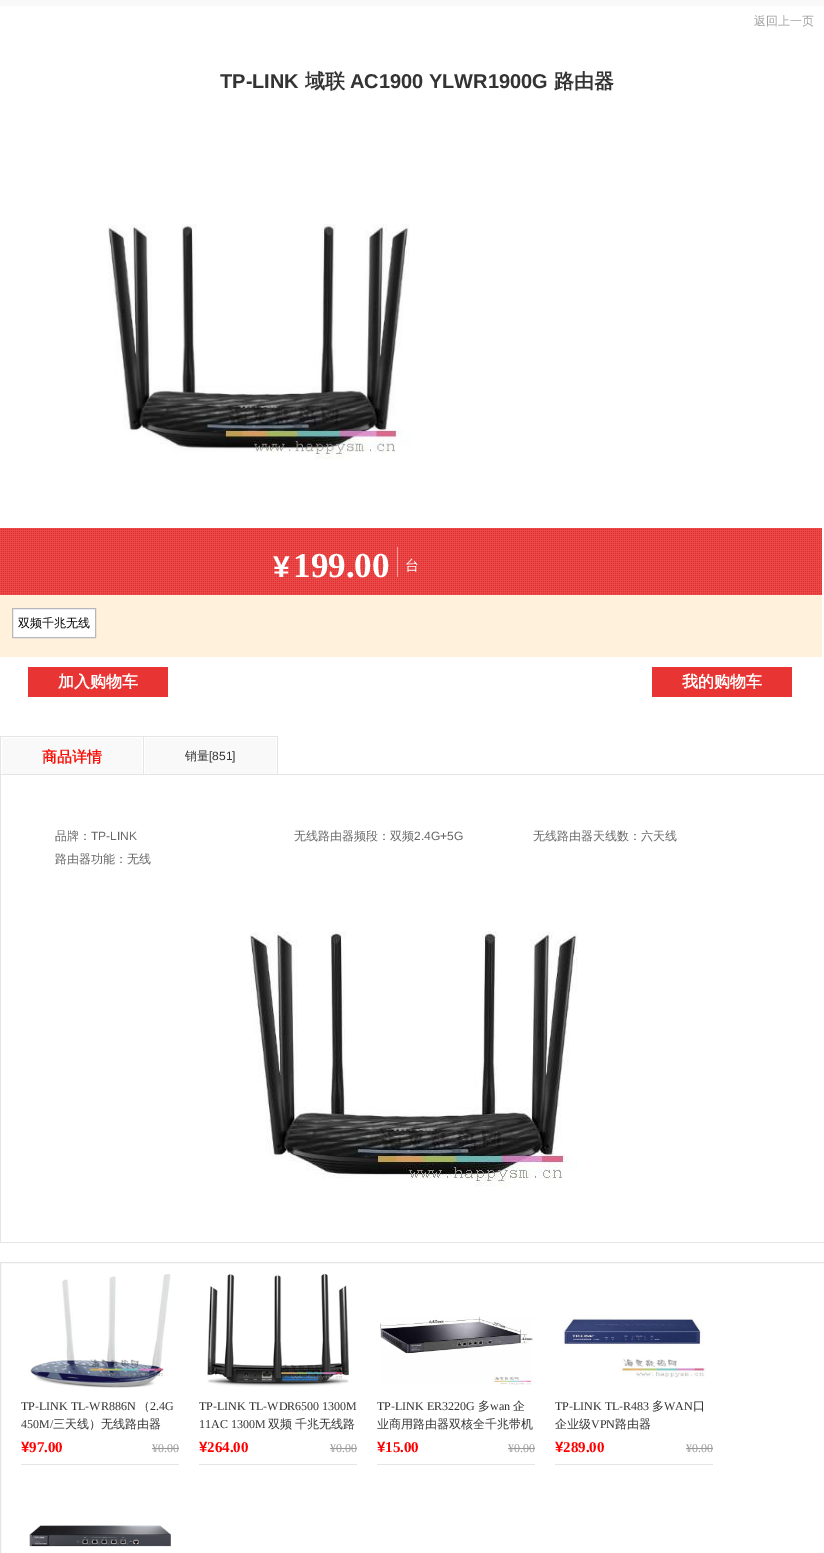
%!PS
<< /PageSize [824 1553] /PageUsesTransparency true >> setpagedevice
/m/moveto load def
/l/rlineto load def
/z/closepath load def
/f/fill load def
/s/stroke load def
/q/gsave load def
/Q_/grestore load def
/C { dup -16 bitshift 255 div exch dup -8 bitshift 255 and 255 div exch 255 and 255 div setrgbcolor } def
/F { [ exch dup neg 0 0 3 -1 roll 0 0 ] selectfont } def
/T { moveto show } def
/R { rectfill } def
/A { dup .setfillconstantalpha .setstrokeconstantalpha } def
/I { 5 dict begin { /h /w /y /x /name } { exch def } forall
  gsave x y translate w h scale
  w h 8 [w 0 0 h 0 0] name (r) file false 3 colorimage grestore end } def
0 .pushpdf14devicefilter
0 1553 translate 1 -1 scale
4 setmiterlimit
16#FFFFFF C
0 0 824 1553 R
16#F9F9F9 C
0 0 824 6 R
/WenQuanYiZenHei-Medium 12 F
16#A09E9E C
(返回上一页) 754 25 T
/LiberationSans-Bold 20 F
16#333333 C
(TP-LINK) 220 88 T
/WenQuanYiZenHei-Bold 20 F
(域联) 305 88 T
/LiberationSans-Bold 20 F
(AC1900 YLWR1900G) 350 88 T
/WenQuanYiZenHei-Bold 20 F
(路由器) 554 88 T
(1.rgb) 108 224 302 236 I
(2.rgb) 0 528 822 67 I
/LiberationSans-Bold 30 F
16#FFFFFF C
(¥) 273 577 T
/LiberationSerif-Bold 35 F
(199.00) 293 577 T
0.5 A
397 547 1 30 R
/WenQuanYiZenHei-Medium 14 F
1 A
(台) 405 570 T
16#FFF1DC C
0 595 822 62 R
16#FFFFFF C
12.5 608.5 m 83 0 l 0 29 l -83 0 l z q f Q_
16#B8B7BD C
s
/WenQuanYiZenHei-Medium 12 F
16#000000 C
(双频千兆无线) 18 627 T
16#E83433 C
28 667 140 30 R
/WenQuanYiZenHei-Bold 16 F
16#FFFFFF C
(加入购物车) 58 687 T
16#E83433 C
652 667 140 30 R
16#FFFFFF C
(我的购物车) 682 687 T
16#E5E5E5 C
278 774 546 1 R
0 736 1 39 R
16#F9F9F9 C
2 738 140 36 R
16#E5E5E5 C
1 736 277 1 R
143 736 1 39 R
1 774 143 1 R
/WenQuanYiZenHei-Bold 15 F
16#F7120A C
(商品详情) 42 762 T
16#F9F9F9 C
145 738 131 36 R
16#E5E5E5 C
277 736 1 39 R
144 774 134 1 R
/WenQuanYiZenHei-Medium 12 F
16#333333 C
(销量) 185 760 T
/LiberationSans-Regular 12 F
([851]) 209 760 T
16#E5E5E5 C
0 1242 824 1 R
0 775 1 468 R
/WenQuanYiZenHei-Medium 12 F
16#666666 C
(品牌：) 55 840 T
/LiberationSans-Regular 12 F
(TP-LINK) 91 840 T
/WenQuanYiZenHei-Medium 12 F
(无线路由器频段：双频) 294 840 T
/LiberationSans-Regular 12 F
(2.4G+5G) 414 840 T
/WenQuanYiZenHei-Medium 12 F
(无线路由器天线数：六天线) 533 840 T
(路由器功能：无线) 55 863 T
(3.rgb) 250 931 328 256 I
16#E5E5E5 C
.5 1262.5 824 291 rectstroke
21 1464 158 1 R
(4.rgb) 29 1274 142 114 I
/LiberationSerif-Regular 12 F
16#333333 C
(TP-LINK TL-WR886N) 21 1410 T
/WenQuanYiZenHei-Medium 12 F
(（) 138 1410 T
/LiberationSerif-Regular 12 F
(2.4G) 150 1410 T
(450M/) 21 1428 T
/WenQuanYiZenHei-Medium 12 F
(三天线）无线路由器) 53 1428 T
/LiberationSans-Bold 15 F
16#FE0000 C
(¥) 21 1452 T
/LiberationSerif-Bold 15 F
(97.00) 29 1452 T
/LiberationSerif-Regular 12 F
16#999999 C
(¥0.00) 152 1452 T
152 1448 27 1 R
16#E5E5E5 C
199 1464 158 1 R
(5.rgb) 207 1273 142 114 I
16#333333 C
(TP-LINK TL-WDR6500 1300M) 199 1410 T
(11AC 1300M) 199 1428 T
/WenQuanYiZenHei-Medium 12 F
(双频) 268 1428 T
(千兆无线路) 295 1428 T
/LiberationSans-Bold 15 F
16#FE0000 C
(¥) 199 1452 T
/LiberationSerif-Bold 15 F
(264.00) 207 1452 T
/LiberationSerif-Regular 12 F
16#999999 C
(¥0.00) 330 1452 T
330 1448 27 1 R
16#E5E5E5 C
377 1464 158 1 R
(6.rgb) 380 1316 153 69 I
16#333333 C
(TP-LINK ER3220G) 377 1410 T
/WenQuanYiZenHei-Medium 12 F
(多) 478 1410 T
/LiberationSerif-Regular 12 F
(wan) 490 1410 T
/WenQuanYiZenHei-Medium 12 F
(企) 513 1410 T
(业商用路由器双核全千兆带机) 377 1428 T
/LiberationSans-Bold 15 F
16#FE0000 C
(¥) 377 1452 T
/LiberationSerif-Bold 15 F
(15.00) 385 1452 T
/LiberationSerif-Regular 12 F
16#999999 C
(¥0.00) 508 1452 T
508 1448 27 1 R
16#E5E5E5 C
555 1464 158 1 R
(7.rgb) 562 1315 145 63 I
16#333333 C
(TP-LINK TL-R483) 555 1410 T
/WenQuanYiZenHei-Medium 12 F
(多) 652 1410 T
/LiberationSerif-Regular 12 F
(WAN) 664 1410 T
/WenQuanYiZenHei-Medium 12 F
(口) 693 1410 T
(企业级) 555 1428 T
/LiberationSerif-Regular 12 F
(VPN) 591 1428 T
/WenQuanYiZenHei-Medium 12 F
(路由器) 615 1428 T
/LiberationSans-Bold 15 F
16#FE0000 C
(¥) 555 1452 T
/LiberationSerif-Bold 15 F
(289.00) 563 1452 T
/LiberationSerif-Regular 12 F
16#999999 C
(¥0.00) 686 1452 T
686 1448 27 1 R
(8.rgb) 29 1525 142 22 I
.poppdf14devicefilter showpage
